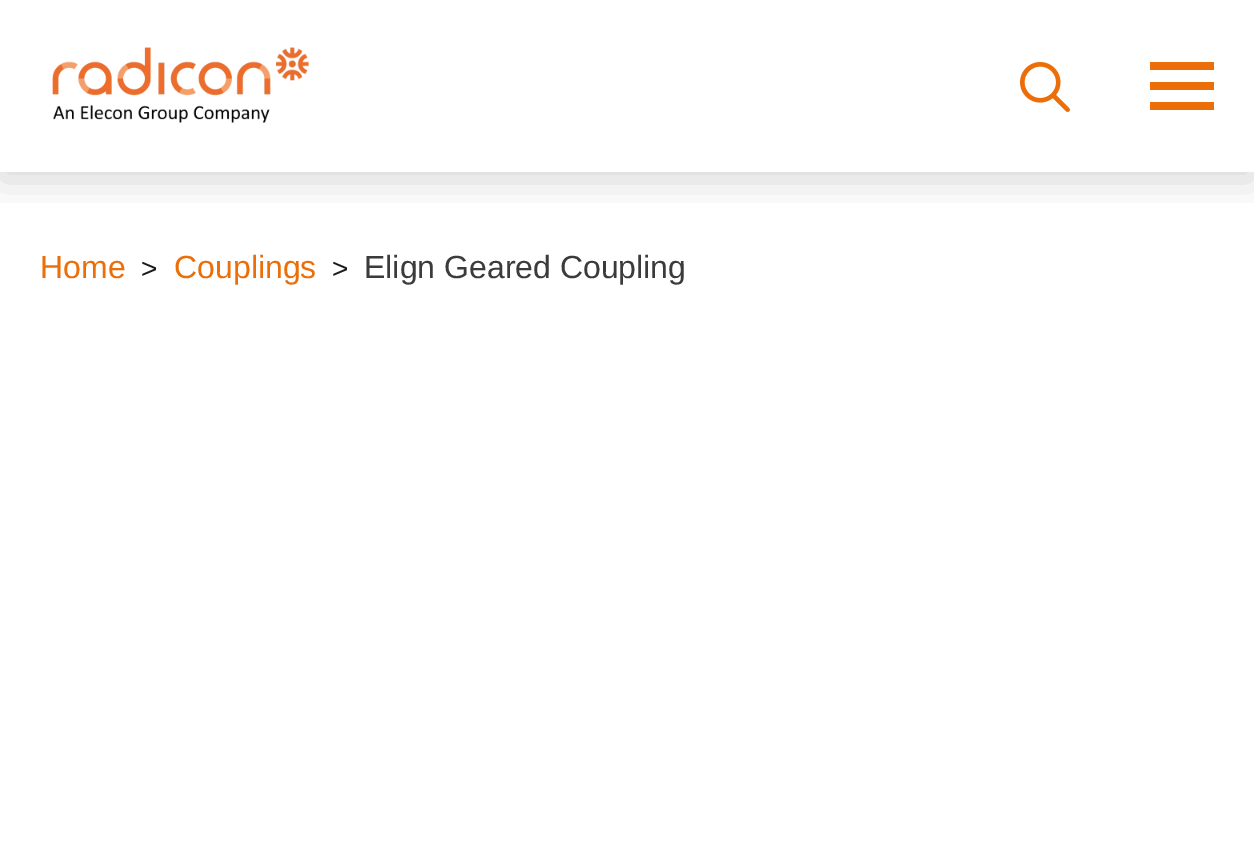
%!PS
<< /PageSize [1254 843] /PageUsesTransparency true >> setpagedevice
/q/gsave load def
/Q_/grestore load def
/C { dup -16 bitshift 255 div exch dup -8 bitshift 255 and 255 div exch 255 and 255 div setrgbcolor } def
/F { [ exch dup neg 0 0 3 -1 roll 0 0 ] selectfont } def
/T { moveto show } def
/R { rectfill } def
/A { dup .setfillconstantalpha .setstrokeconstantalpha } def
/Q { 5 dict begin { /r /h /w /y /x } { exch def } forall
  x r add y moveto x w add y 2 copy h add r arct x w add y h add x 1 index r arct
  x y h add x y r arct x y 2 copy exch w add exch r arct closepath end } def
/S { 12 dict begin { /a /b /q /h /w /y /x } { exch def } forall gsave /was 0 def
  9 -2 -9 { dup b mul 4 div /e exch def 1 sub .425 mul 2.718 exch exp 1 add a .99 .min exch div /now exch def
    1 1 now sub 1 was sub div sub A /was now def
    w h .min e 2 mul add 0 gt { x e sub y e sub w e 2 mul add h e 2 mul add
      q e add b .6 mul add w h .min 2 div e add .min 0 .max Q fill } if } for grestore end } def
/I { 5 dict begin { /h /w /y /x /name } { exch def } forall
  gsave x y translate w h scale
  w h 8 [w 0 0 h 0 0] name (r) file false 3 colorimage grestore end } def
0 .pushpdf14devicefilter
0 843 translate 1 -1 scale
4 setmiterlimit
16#FFFFFF C
0 0 1254 843 R
q
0 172 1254 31 rectclip
16#000000 C
0 8 1254 172 0 20 .16 S
Q_
(1.rgb) 52 47 257 77 I
(2.rgb) 1020 62 50 50 I
16#EB6E08 C
1150 82 64 8 R
1150 62 64 8 R
1150 102 64 8 R
/LiberationSans-Regular 32 F
(Home) 40 278 T
/LiberationSans-Regular 28 F
16#1A1A1A C
(>) 141 278 T
/LiberationSans-Regular 32 F
16#EB6E08 C
(Couplings) 174 278 T
/LiberationSans-Regular 28 F
16#1A1A1A C
(>) 332 278 T
/LiberationSans-Regular 32 F
16#3B3B3B C
(Elign Geared Coupling) 364 278 T
.poppdf14devicefilter showpage
